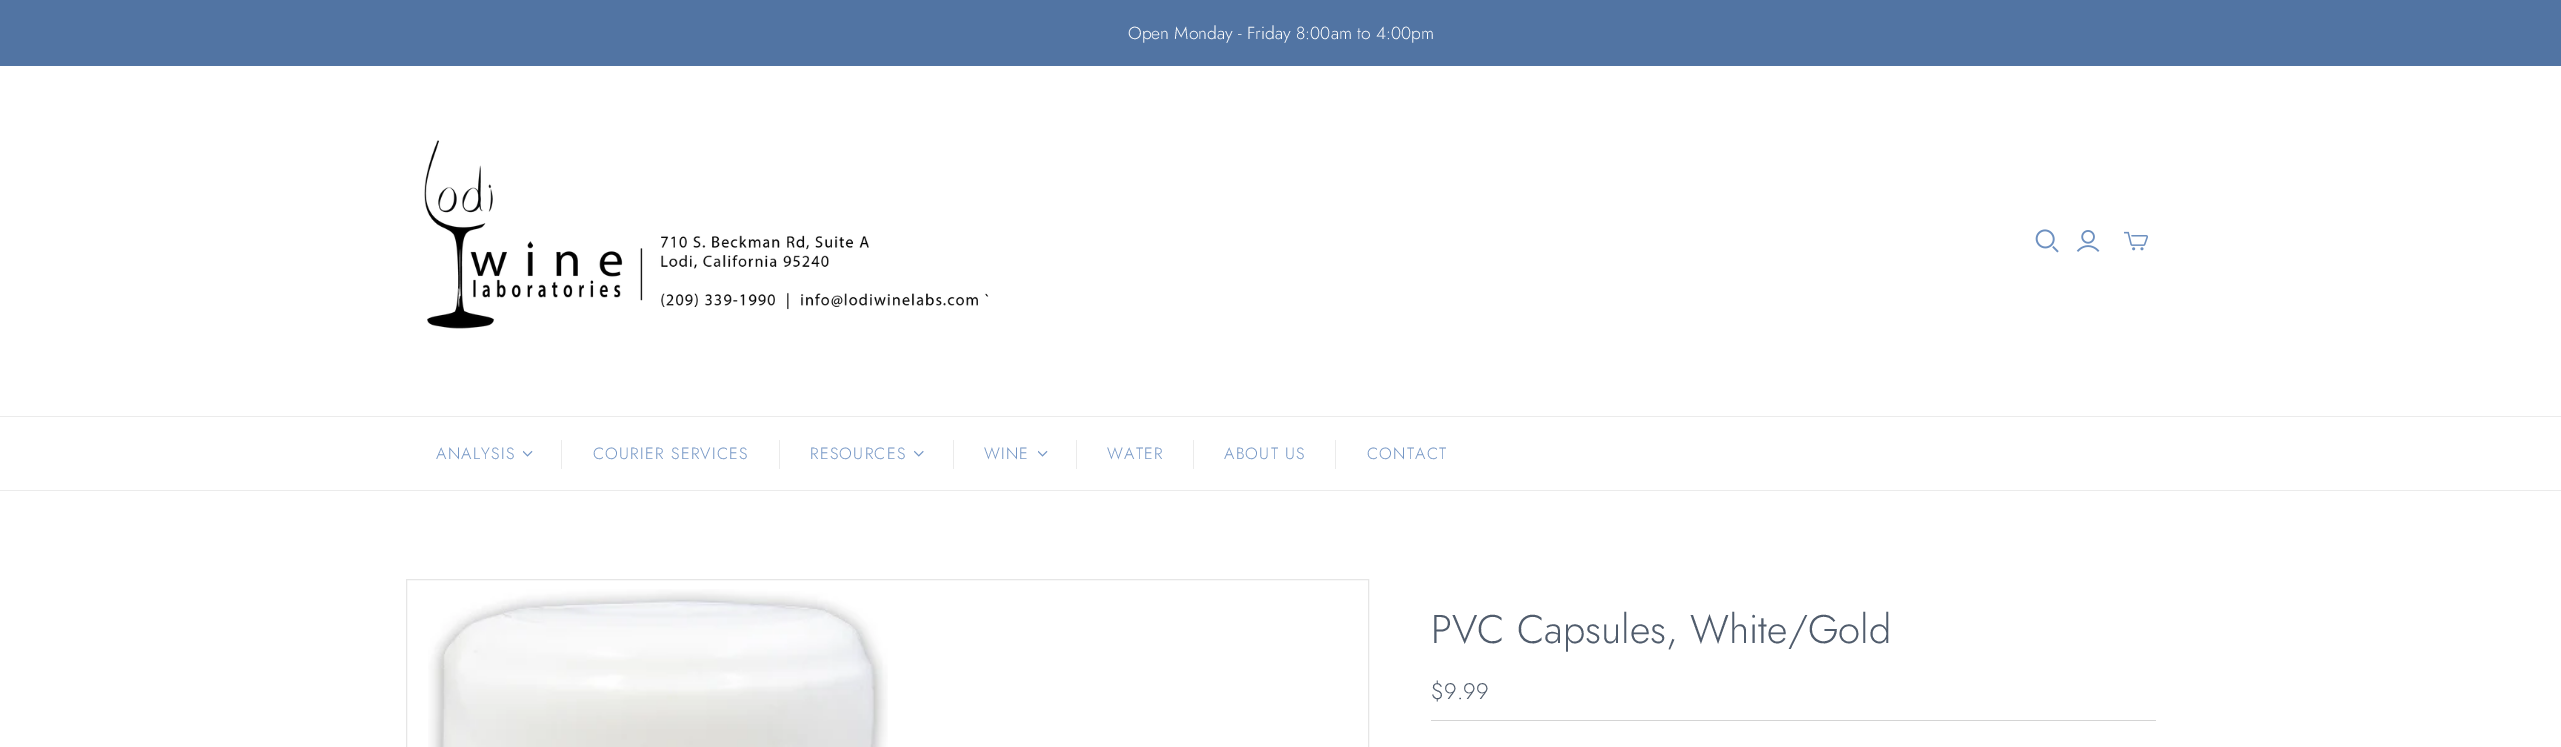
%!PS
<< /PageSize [2561 747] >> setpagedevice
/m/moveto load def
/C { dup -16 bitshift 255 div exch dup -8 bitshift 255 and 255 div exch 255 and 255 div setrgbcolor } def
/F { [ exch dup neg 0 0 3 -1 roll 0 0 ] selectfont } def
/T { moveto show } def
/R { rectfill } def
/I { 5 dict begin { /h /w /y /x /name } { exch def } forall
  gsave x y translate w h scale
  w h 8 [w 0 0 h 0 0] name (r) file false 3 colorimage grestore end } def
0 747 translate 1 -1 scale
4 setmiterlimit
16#FFFFFF C
0 0 2561 747 R
16#5174A3 C
0 0 2561 66 R
/Jost-Light 17.5 F
16#FFFFFF C
(Open Monday - Friday 8:00am to 4:00pm) 1128 39 T
(1.rgb) 424 140 565 189 I
(2.rgb) 2035 229 24 24 I
(3.rgb) 2076 230 24 22 I
(4.rgb) 2124 231 24 20 I
16#EBEBEB C
0 416 2561 1 R
0 490 2561 1 R
/Jost-Light 16.25 F
16#7496C5 C
436 459 m 1.25 0 (ANALYSIS) ashow
(5.rgb) 523 450 10 7 I
16#EBEBEB C
561 440 1 29 R
16#7496C5 C
593 459 m 1.25 0 (COURIER SERVICES) ashow
16#EBEBEB C
779 440 1 29 R
16#7496C5 C
810 459 m 1.25 0 (RESOURCES) ashow
(6.rgb) 914 450 10 7 I
16#EBEBEB C
953 440 1 29 R
16#7496C5 C
984 459 m 1.25 0 (WINE) ashow
(5.rgb) 1038 450 10 7 I
16#EBEBEB C
1076 440 1 29 R
16#7496C5 C
1107 459 m 1.25 0 (WATER) ashow
16#EBEBEB C
1193 440 1 29 R
16#7496C5 C
1224 459 m 1.25 0 (ABOUT US) ashow
16#EBEBEB C
1335 440 1 29 R
16#7496C5 C
1367 459 m 1.25 0 (CONTACT) ashow
(7.rgb) 428 589 460 158 I
16#E6E6E6 C
406.5 579.5 962 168 rectstroke
/Jost-Light 40 F
16#505C6C C
(PVC Capsules, White/Gold) 1431 643 T
16#D4D4D4 C
1431 720 725 1 R
/Jost-Light 22.5 F
16#505C6C C
($9.99) 1431 699 T
showpage
